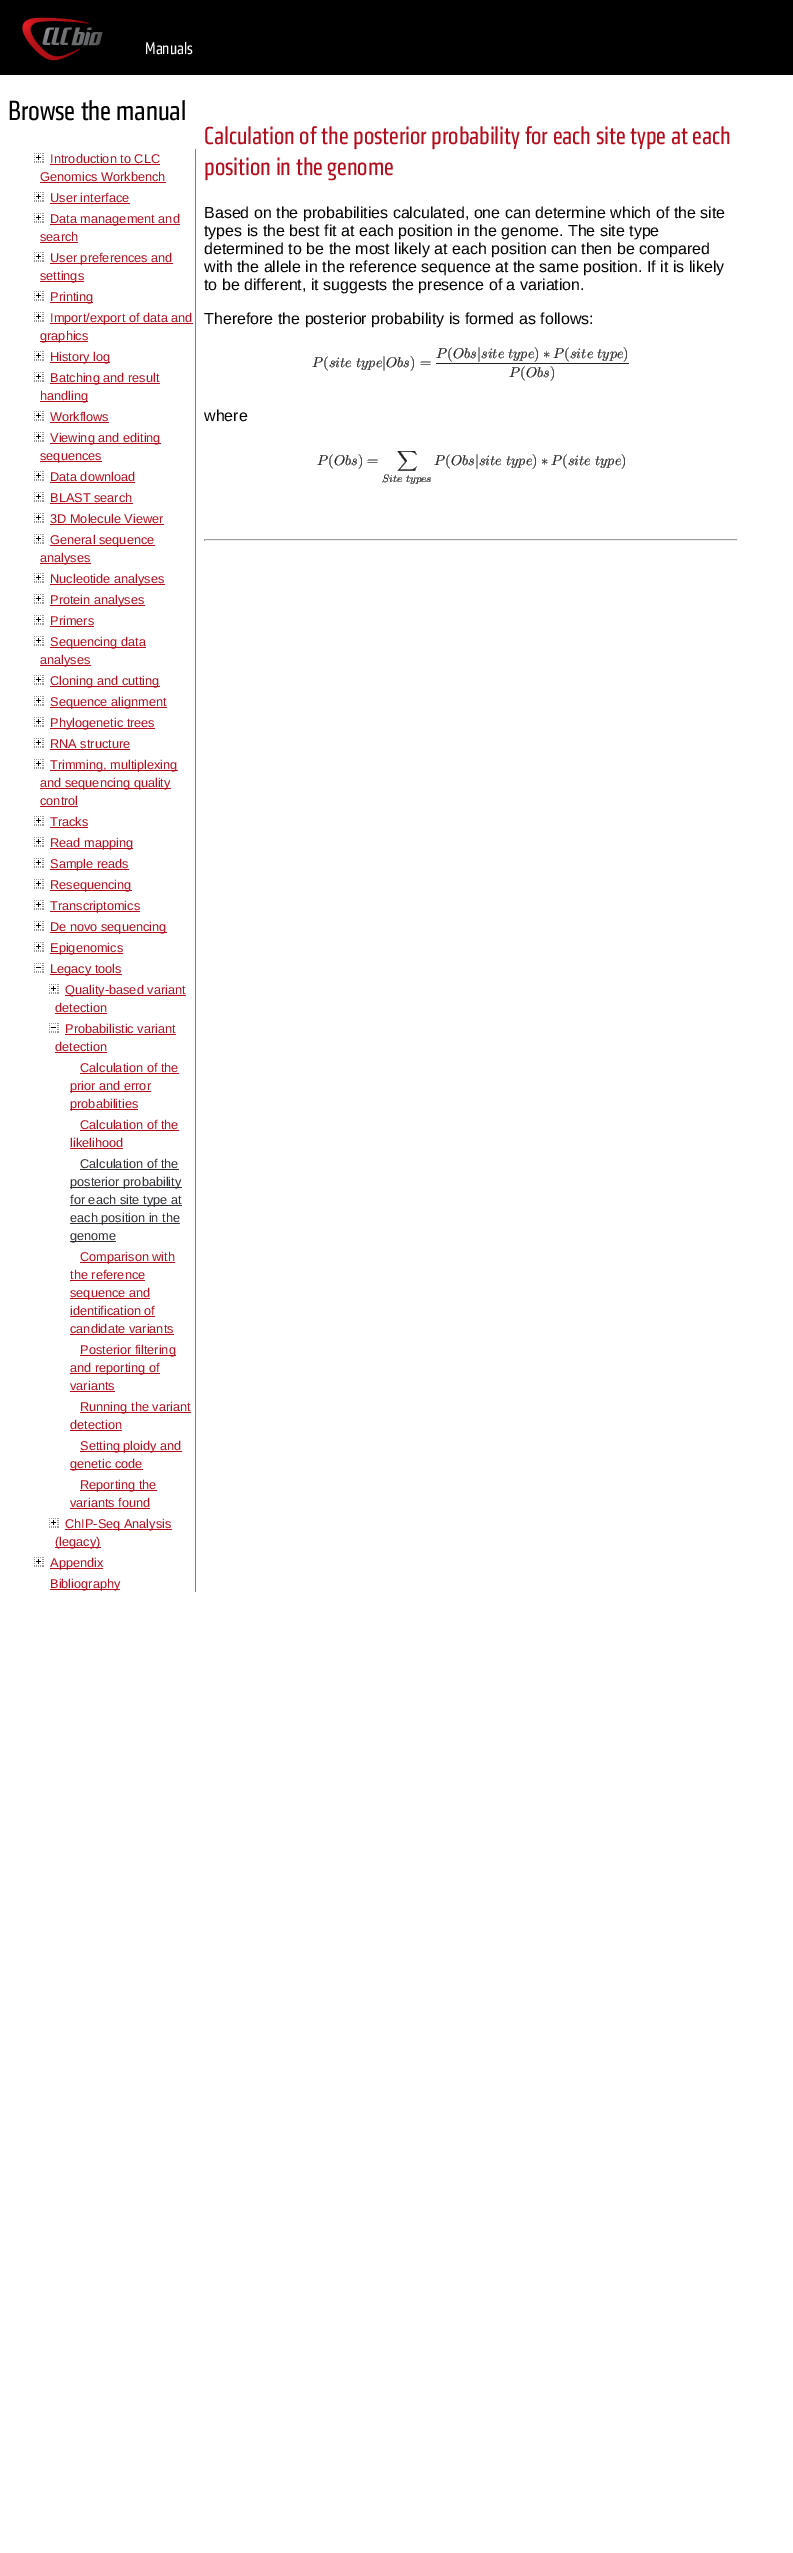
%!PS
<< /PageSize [793 2553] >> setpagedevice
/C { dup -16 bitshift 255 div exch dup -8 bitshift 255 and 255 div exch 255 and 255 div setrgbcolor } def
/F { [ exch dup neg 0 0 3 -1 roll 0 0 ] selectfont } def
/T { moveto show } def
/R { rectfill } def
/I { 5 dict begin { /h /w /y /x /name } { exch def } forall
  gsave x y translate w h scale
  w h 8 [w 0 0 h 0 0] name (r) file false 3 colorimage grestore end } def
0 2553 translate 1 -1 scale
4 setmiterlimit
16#FFFFFF C
0 0 793 2553 R
16#000000 C
0 0 793 75 R
(1.rgb) 22 17 81 44 I
/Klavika-Regular 17.5 F
16#FFFFFF C
(Manuals) 145 54 T
/Klavika-Regular 28.75 F
16#000000 C
(Browse the manual) 8 120 T
16#808080 C
195 149 1 1443 R
(2.rgb) 34 153 10 10 I
/LiberationSans-Regular 12.75 F
16#B40D1E C
(Introduction to CLC) 50 163 T
50 164 110 1 R
(Genomics Workbench) 40 181 T
40 182 126 1 R
(2.rgb) 34 192 10 10 I
(User interface) 50 202 T
50 203 80 1 R
(2.rgb) 34 213 10 10 I
50 224 130 1 R
(Data management and) 50 223 T
(search) 40 241 T
40 242 38 1 R
(2.rgb) 34 252 10 10 I
50 263 123 1 R
(User preferences and) 50 262 T
40 281 44 1 R
(settings) 40 280 T
(2.rgb) 34 291 10 10 I
50 302 43 1 R
(Printing) 50 301 T
(2.rgb) 34 312 10 10 I
50 323 143 1 R
(Import/export of data and) 50 322 T
40 341 48 1 R
(graphics) 40 340 T
(2.rgb) 34 351 10 10 I
50 362 60 1 R
(History log) 50 361 T
(2.rgb) 34 372 10 10 I
50 383 110 1 R
(Batching and result) 50 382 T
40 401 48 1 R
(handling) 40 400 T
(2.rgb) 34 411 10 10 I
(Workflows) 50 421 T
50 422 59 1 R
(2.rgb) 34 432 10 10 I
50 443 111 1 R
(Viewing and editing) 50 442 T
40 461 62 1 R
(sequences) 40 460 T
(2.rgb) 34 471 10 10 I
(Data download) 50 481 T
50 482 85 1 R
(2.rgb) 34 492 10 10 I
(BLAST search) 50 502 T
50 503 83 1 R
(2.rgb) 34 513 10 10 I
(3D Molecule Viewer) 50 523 T
50 524 114 1 R
(2.rgb) 34 534 10 10 I
50 545 105 1 R
(General sequence) 50 544 T
40 563 51 1 R
(analyses) 40 562 T
(2.rgb) 34 573 10 10 I
50 584 115 1 R
(Nucleotide analyses) 50 583 T
(2.rgb) 34 594 10 10 I
50 605 95 1 R
(Protein analyses) 50 604 T
(2.rgb) 34 615 10 10 I
(Primers) 50 625 T
50 626 44 1 R
(2.rgb) 34 636 10 10 I
50 647 96 1 R
(Sequencing data) 50 646 T
40 665 51 1 R
(analyses) 40 664 T
(2.rgb) 34 675 10 10 I
50 686 110 1 R
(Cloning and cutting) 50 685 T
(2.rgb) 34 696 10 10 I
50 707 117 1 R
(Sequence alignment) 50 706 T
(2.rgb) 34 717 10 10 I
50 728 105 1 R
(Phylogenetic trees) 50 727 T
(2.rgb) 34 738 10 10 I
(RNA structure) 50 748 T
50 749 80 1 R
(2.rgb) 34 759 10 10 I
50 770 128 1 R
(Trimming, multiplexing) 50 769 T
40 788 131 1 R
(and sequencing quality) 40 787 T
(control) 40 805 T
40 806 38 1 R
(2.rgb) 34 816 10 10 I
(Tracks) 50 826 T
50 827 38 1 R
(2.rgb) 34 837 10 10 I
50 848 83 1 R
(Read mapping) 50 847 T
(2.rgb) 34 858 10 10 I
50 869 79 1 R
(Sample reads) 50 868 T
(2.rgb) 34 879 10 10 I
50 890 82 1 R
(Resequencing) 50 889 T
(2.rgb) 34 900 10 10 I
50 911 90 1 R
(Transcriptomics) 50 910 T
(2.rgb) 34 921 10 10 I
50 932 117 1 R
(De novo sequencing) 50 931 T
(2.rgb) 34 942 10 10 I
50 953 73 1 R
(Epigenomics) 50 952 T
(3.rgb) 34 963 10 10 I
50 974 72 1 R
(Legacy tools) 50 973 T
(2.rgb) 49 984 10 10 I
65 995 121 1 R
(Quality-based variant) 65 994 T
(detection) 55 1012 T
55 1013 52 1 R
(3.rgb) 49 1023 10 10 I
(Probabilistic variant) 65 1033 T
65 1034 111 1 R
(detection) 55 1051 T
55 1052 52 1 R
(Calculation of the) 80 1072 T
80 1073 99 1 R
70 1091 81 1 R
(prior and error) 70 1090 T
70 1109 68 1 R
(probabilities) 70 1108 T
(Calculation of the) 80 1129 T
80 1130 99 1 R
(likelihood) 70 1147 T
70 1148 53 1 R
16#2E2E35 C
(Calculation of the) 80 1168 T
80 1169 99 1 R
70 1187 112 1 R
(posterior probability) 70 1186 T
70 1205 112 1 R
(for each site type at) 70 1204 T
70 1223 110 1 R
(each position in the) 70 1222 T
70 1241 46 1 R
(genome) 70 1240 T
16#B40D1E C
80 1262 95 1 R
(Comparison with) 80 1261 T
(the reference) 70 1279 T
70 1280 75 1 R
70 1298 80 1 R
(sequence and) 70 1297 T
(identification of) 70 1315 T
70 1316 85 1 R
(candidate variants) 70 1333 T
70 1334 104 1 R
80 1355 96 1 R
(Posterior filtering) 80 1354 T
70 1373 90 1 R
(and reporting of) 70 1372 T
(variants) 70 1390 T
70 1391 45 1 R
80 1412 111 1 R
(Running the variant) 80 1411 T
(detection) 70 1429 T
70 1430 52 1 R
80 1451 102 1 R
(Setting ploidy and) 80 1450 T
70 1469 73 1 R
(genetic code) 70 1468 T
80 1490 77 1 R
(Reporting the) 80 1489 T
(variants found) 70 1507 T
70 1508 80 1 R
(2.rgb) 49 1518 10 10 I
65 1529 107 1 R
(ChIP-Seq Analysis) 65 1528 T
55 1547 46 1 R
(\(legacy\)) 55 1546 T
(2.rgb) 34 1557 10 10 I
50 1568 53 1 R
(Appendix) 50 1567 T
50 1589 70 1 R
(Bibliography) 50 1588 T
/Klavika-Regular 25.6 F
(Calculation of the posterior probability for each site type at each) 204 144 T
(position in the genome) 204 175 T
/LiberationSans-Regular 16 F
16#000000 C
(Based on the probabilities calculated, one can determine which of the site) 204 218 T
(types is the best fit at each position in the genome. The site type) 204 236 T
(determined to be the most likely at each position can then be compared) 204 254 T
(with the allele in the reference sequence at the same position. If it is likely) 204 272 T
(to be different, it suggests the presence of a variation.) 204 290 T
(Therefore the posterior probability is formed as follows:) 204 324 T
(4.rgb) 312 347 317 34 I
(where) 204 421 T
(5.rgb) 317 451 308 33 I
16#9F9F9F C
204 539 534 1 R
16#EEEEEE C
737 539 1 2 R
204 540 534 1 R
16#9F9F9F C
204 539 1 2 R
showpage
